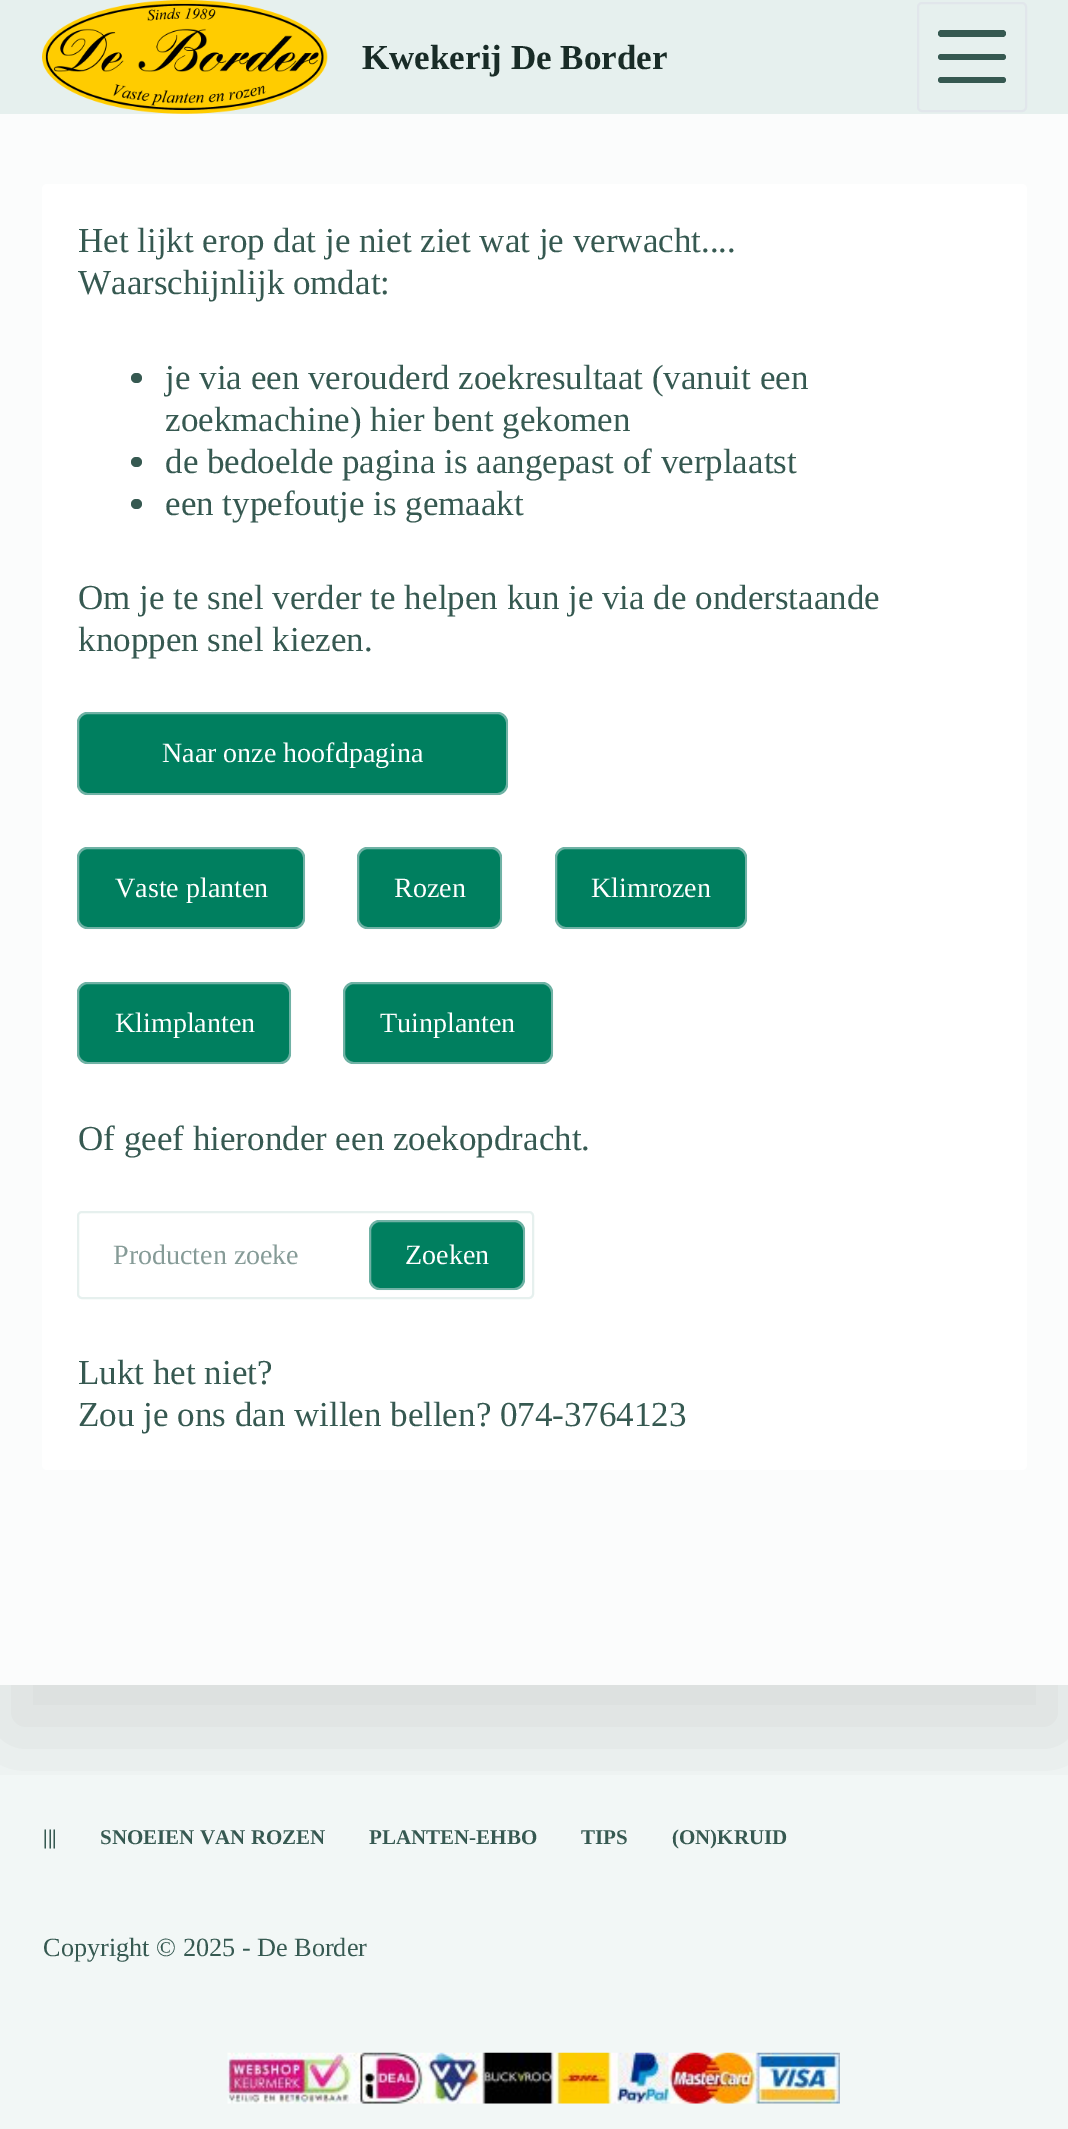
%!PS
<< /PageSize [1068 2129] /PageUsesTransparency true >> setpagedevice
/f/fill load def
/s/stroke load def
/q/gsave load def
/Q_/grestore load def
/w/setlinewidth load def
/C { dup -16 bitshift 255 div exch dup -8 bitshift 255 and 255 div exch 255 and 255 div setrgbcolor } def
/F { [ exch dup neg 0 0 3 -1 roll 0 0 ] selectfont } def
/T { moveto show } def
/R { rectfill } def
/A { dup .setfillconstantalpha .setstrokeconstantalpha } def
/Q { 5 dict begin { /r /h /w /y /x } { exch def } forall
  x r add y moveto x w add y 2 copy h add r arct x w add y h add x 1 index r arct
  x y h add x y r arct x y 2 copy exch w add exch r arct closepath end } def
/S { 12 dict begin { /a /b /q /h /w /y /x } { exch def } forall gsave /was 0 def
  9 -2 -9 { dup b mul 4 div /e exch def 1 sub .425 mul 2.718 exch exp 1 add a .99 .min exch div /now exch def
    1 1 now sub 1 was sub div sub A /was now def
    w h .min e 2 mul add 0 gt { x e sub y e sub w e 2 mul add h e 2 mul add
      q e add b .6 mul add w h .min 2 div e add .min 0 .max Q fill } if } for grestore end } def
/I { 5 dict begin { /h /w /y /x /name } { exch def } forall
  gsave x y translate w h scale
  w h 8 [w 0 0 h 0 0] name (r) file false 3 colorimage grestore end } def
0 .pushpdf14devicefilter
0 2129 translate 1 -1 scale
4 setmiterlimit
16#FBFCFC C
0 0 1068 2129 R
16#F2F7F6 C
0 1685 1068 444 R
q
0 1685 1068 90 rectclip
16#000000 C
0 166 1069 1572 0 44 .1 S
Q_
16#E6F0EE C
0 0 1068 114 R
(1.rgb) 42 0 286 114 I
/LiberationSerif-Bold 35 F
16#192C27 C
(Kwekerij De Border) 362 69 T
16#E1E6EB C
2 w
918 3 108 108 4 Q s
16#365951 C
938 30 68 7 3.5 Q f
938 54 68 6 3 Q f
938 77 68 6 3 Q f
16#FFFFFF C
42 184 985 1286 5 Q f
/LiberationSerif-Regular 35 F
16#365951 C
(Het lijkt erop dat je niet ziet wat je verwacht....) 78 252 T
(Waarschijnlijk omdat:) 78 294 T
131 373 11 10 5 Q f
(je via een verouderd zoekresultaat \(vanuit een) 165 389 T
(zoekmachine\) hier bent gekomen) 165 431 T
131 457 11 10 5 Q f
(de bedoelde pagina is aangepast of verplaatst) 165 473 T
131 499 11 10 5 Q f
(een typefoutje is gemaakt) 165 515 T
(Om je te snel verder te helpen kun je via de onderstaande) 78 609 T
(knoppen snel kiezen.) 78 651 T
16#007F5F C
77 712 431 83 11 Q f
0.5 A
16#E0E5EB C
78 713 429 81 10 Q s
/LiberationSerif-Regular 28 F
1 A
16#FFFFFF C
(Naar onze hoofdpagina) 162 762 T
16#007F5F C
77 847 228 82 11 Q f
0.5 A
16#E0E5EB C
78 848 226 80 10 Q s
1 A
16#FFFFFF C
(Vaste planten) 115 897 T
16#007F5F C
357 847 145 82 11 Q f
0.5 A
16#E0E5EB C
358 848 143 80 10 Q s
1 A
16#FFFFFF C
(Rozen) 394 897 T
16#007F5F C
555 847 192 82 11 Q f
0.5 A
16#E0E5EB C
556 848 190 80 10 Q s
1 A
16#FFFFFF C
(Klimrozen) 591 897 T
16#007F5F C
77 982 214 82 11 Q f
0.5 A
16#E0E5EB C
78 983 212 80 10 Q s
1 A
16#FFFFFF C
(Klimplanten) 115 1032 T
16#007F5F C
343 982 210 82 11 Q f
0.5 A
16#E0E5EB C
344 983 208 80 10 Q s
1 A
16#FFFFFF C
(Tuinplanten) 380 1032 T
/LiberationSerif-Regular 35 F
16#365951 C
(Of geef hieronder een zoekopdracht.) 78 1150 T
16#E6F0EE C
78 1212 455 86 4 Q s
/LiberationSerif-Regular 28 F
16#869B97 C
(Producten zoeke) 113 1264 T
16#007F5F C
369 1220 156 70 11 Q f
0.5 A
16#E0E5EB C
370 1221 154 68 10 Q s
1 A
16#FFFFFF C
(Zoeken) 405 1264 T
/LiberationSerif-Regular 35 F
16#365951 C
(Lukt het niet?) 78 1384 T
(Zou je ons dan willen bellen? 074-3764123) 78 1426 T
/LiberationSerif-Bold 21 F
(|||) 43 1844 T
(SNOEIEN VAN ROZEN) 100 1844 T
(PLANTEN-EHBO) 369 1844 T
(TIPS) 581 1844 T
(\(ON\)KRUID) 672 1844 T
/LiberationSerif-Regular 26.25 F
(Copyright © 2025 - De Border) 43 1956 T
(2.rgb) 227 2052 613 52 I
.poppdf14devicefilter showpage
